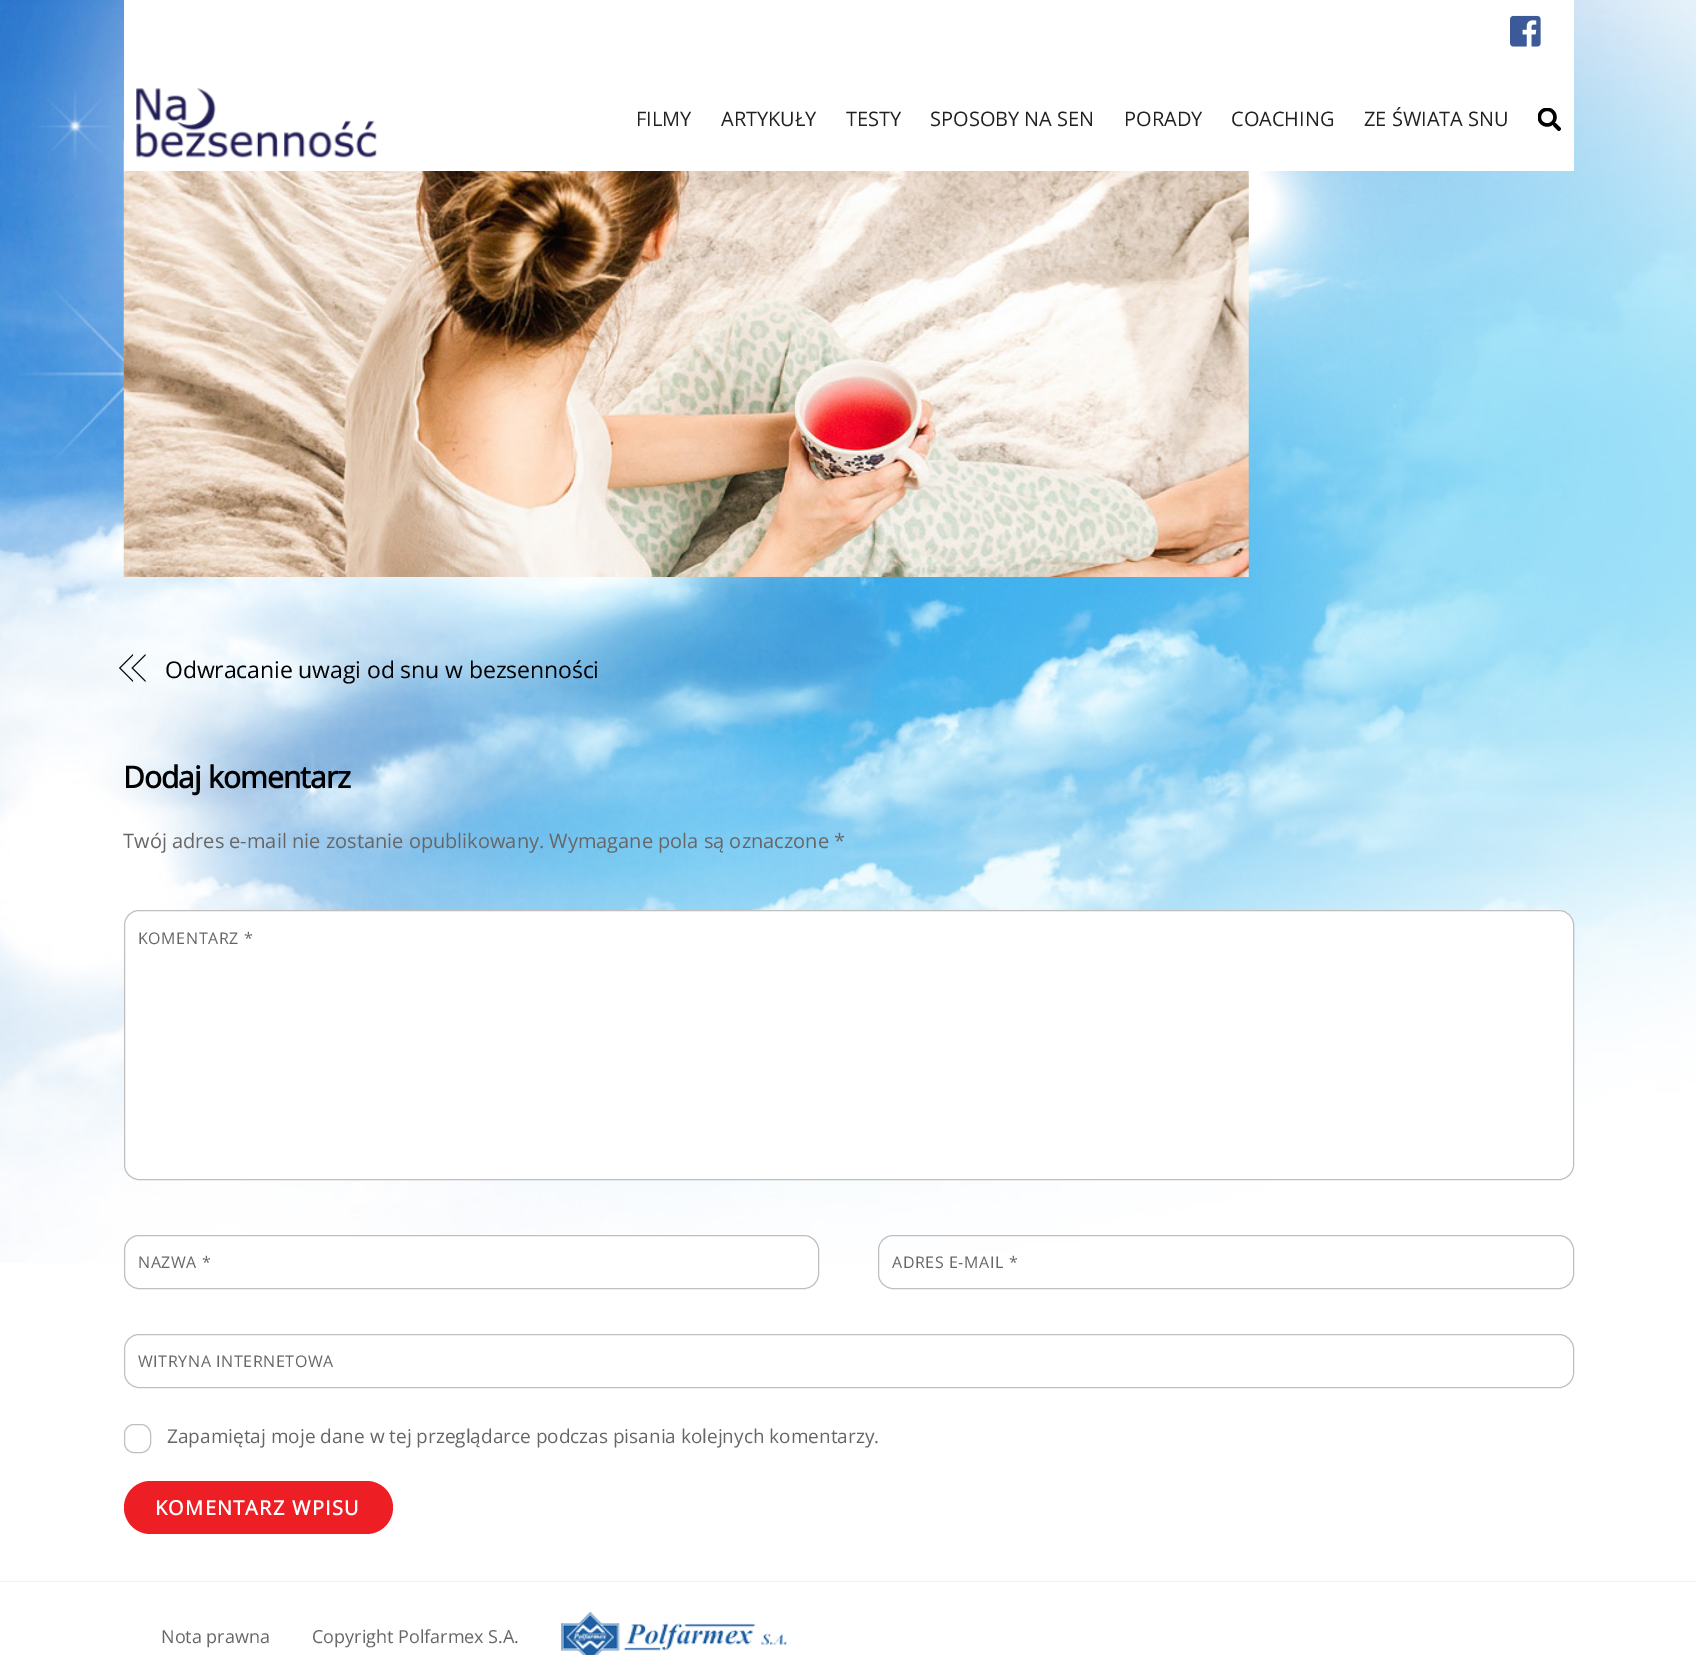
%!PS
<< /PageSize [1696 1655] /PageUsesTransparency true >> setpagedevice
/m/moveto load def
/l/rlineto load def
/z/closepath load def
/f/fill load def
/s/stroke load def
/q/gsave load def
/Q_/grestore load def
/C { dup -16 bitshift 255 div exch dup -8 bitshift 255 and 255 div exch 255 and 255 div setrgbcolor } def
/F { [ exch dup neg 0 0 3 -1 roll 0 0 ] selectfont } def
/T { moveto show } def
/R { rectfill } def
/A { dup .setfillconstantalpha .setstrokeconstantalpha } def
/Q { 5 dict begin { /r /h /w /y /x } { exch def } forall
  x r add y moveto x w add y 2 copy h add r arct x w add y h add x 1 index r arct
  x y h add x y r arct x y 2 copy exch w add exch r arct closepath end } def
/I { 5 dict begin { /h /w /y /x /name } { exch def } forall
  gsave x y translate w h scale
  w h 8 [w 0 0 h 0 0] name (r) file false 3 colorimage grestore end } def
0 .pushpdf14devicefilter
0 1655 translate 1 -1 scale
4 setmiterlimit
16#FFFFFF C
0 0 1696 1655 R
(1.rgb) 0 0 1696 1263 I
(5.rgb) 123 139 1126 438 I
124 0 1450 171 R
(2.rgb) 1510 15 31 32 I
(3.rgb) 136 88 241 70 I
/OpenSans-Regular 20 F
16#212121 C
(FILMY) 636 126 T
(ARTYKUŁY) 721 126 T
(TESTY) 846 126 T
(SPOSOBY NA SEN) 930 126 T
(PORADY) 1124 126 T
(COACHING) 1231 126 T
(ZE ŚWIATA SNU) 1364 126 T
(4.rgb) 1538 108 23 23 I
16#000000 C
119 668 m 14 -14 l 0 1.5 l -12.5 12.5 l z 133 682 m -14 -14 l 1.5 0 l 12.5 12.5 l z f
131.5 668 m 14 -14 l 0 1.5 l -12.5 12.5 l z 145.5 682 m -14 -14 l 1.5 0 l 12.5 12.5 l z f
/OpenSans-Regular 23 F
165 678 m -.1 0 (Odwracanie uwagi od snu w bezsenności) ashow
/OpenSans-Bold 30 F
123 788 m -.9 0 (Dodaj komentarz) ashow
/OpenSans-Regular 20 F
16#666666 C
(Twój adres e-mail nie zostanie opublikowany. Wymagane pola są oznaczone *) 123 848 T
16#FFFFFF C
124 910 1450 270 15 Q f
0.25 A
16#000000 C
124.5 910.5 1449 269 14.5 Q s
/OpenSans-Regular 16 F
1 A
16#666666 C
138 944 m .6 0 (KOMENTARZ *) ashow
16#FFFFFF C
124.5 1235.5 694 53 14.5 Q q f Q_
16#BFBFBF C
s
16#666666 C
138 1268 m .6 0 (NAZWA *) ashow
16#BFBFBF C
878.5 1235.5 695 53 14.5 Q s
16#666666 C
892 1268 m .6 0 (ADRES E-MAIL *) ashow
16#BFBFBF C
124.5 1334.5 1449 53 14.5 Q s
16#666666 C
138 1367 m .6 0 (WITRYNA INTERNETOWA) ashow
16#BFBFBF C
124.5 1424.5 26 28 9.5 Q s
/OpenSans-Regular 19 F
16#666666 C
(Zapamiętaj moje dane w tej przeglądarce podczas pisania kolejnych komentarzy.) 167 1443 T
16#ED1E24 C
124 1481 269 53 26.5 Q f
/OpenSans-Bold 20 F
16#FFFFFF C
155 1515 m 1.25 0 (KOMENTARZ WPISU) ashow
16#F2F2F2 C
0 1581 1696 1 R
/OpenSans-Regular 18 F
16#666666 C
(Nota prawna) 161 1643 T
(Copyright Polfarmex S.A.) 312 1643 T
(6.rgb) 561 1612 226 43 I
.poppdf14devicefilter showpage
